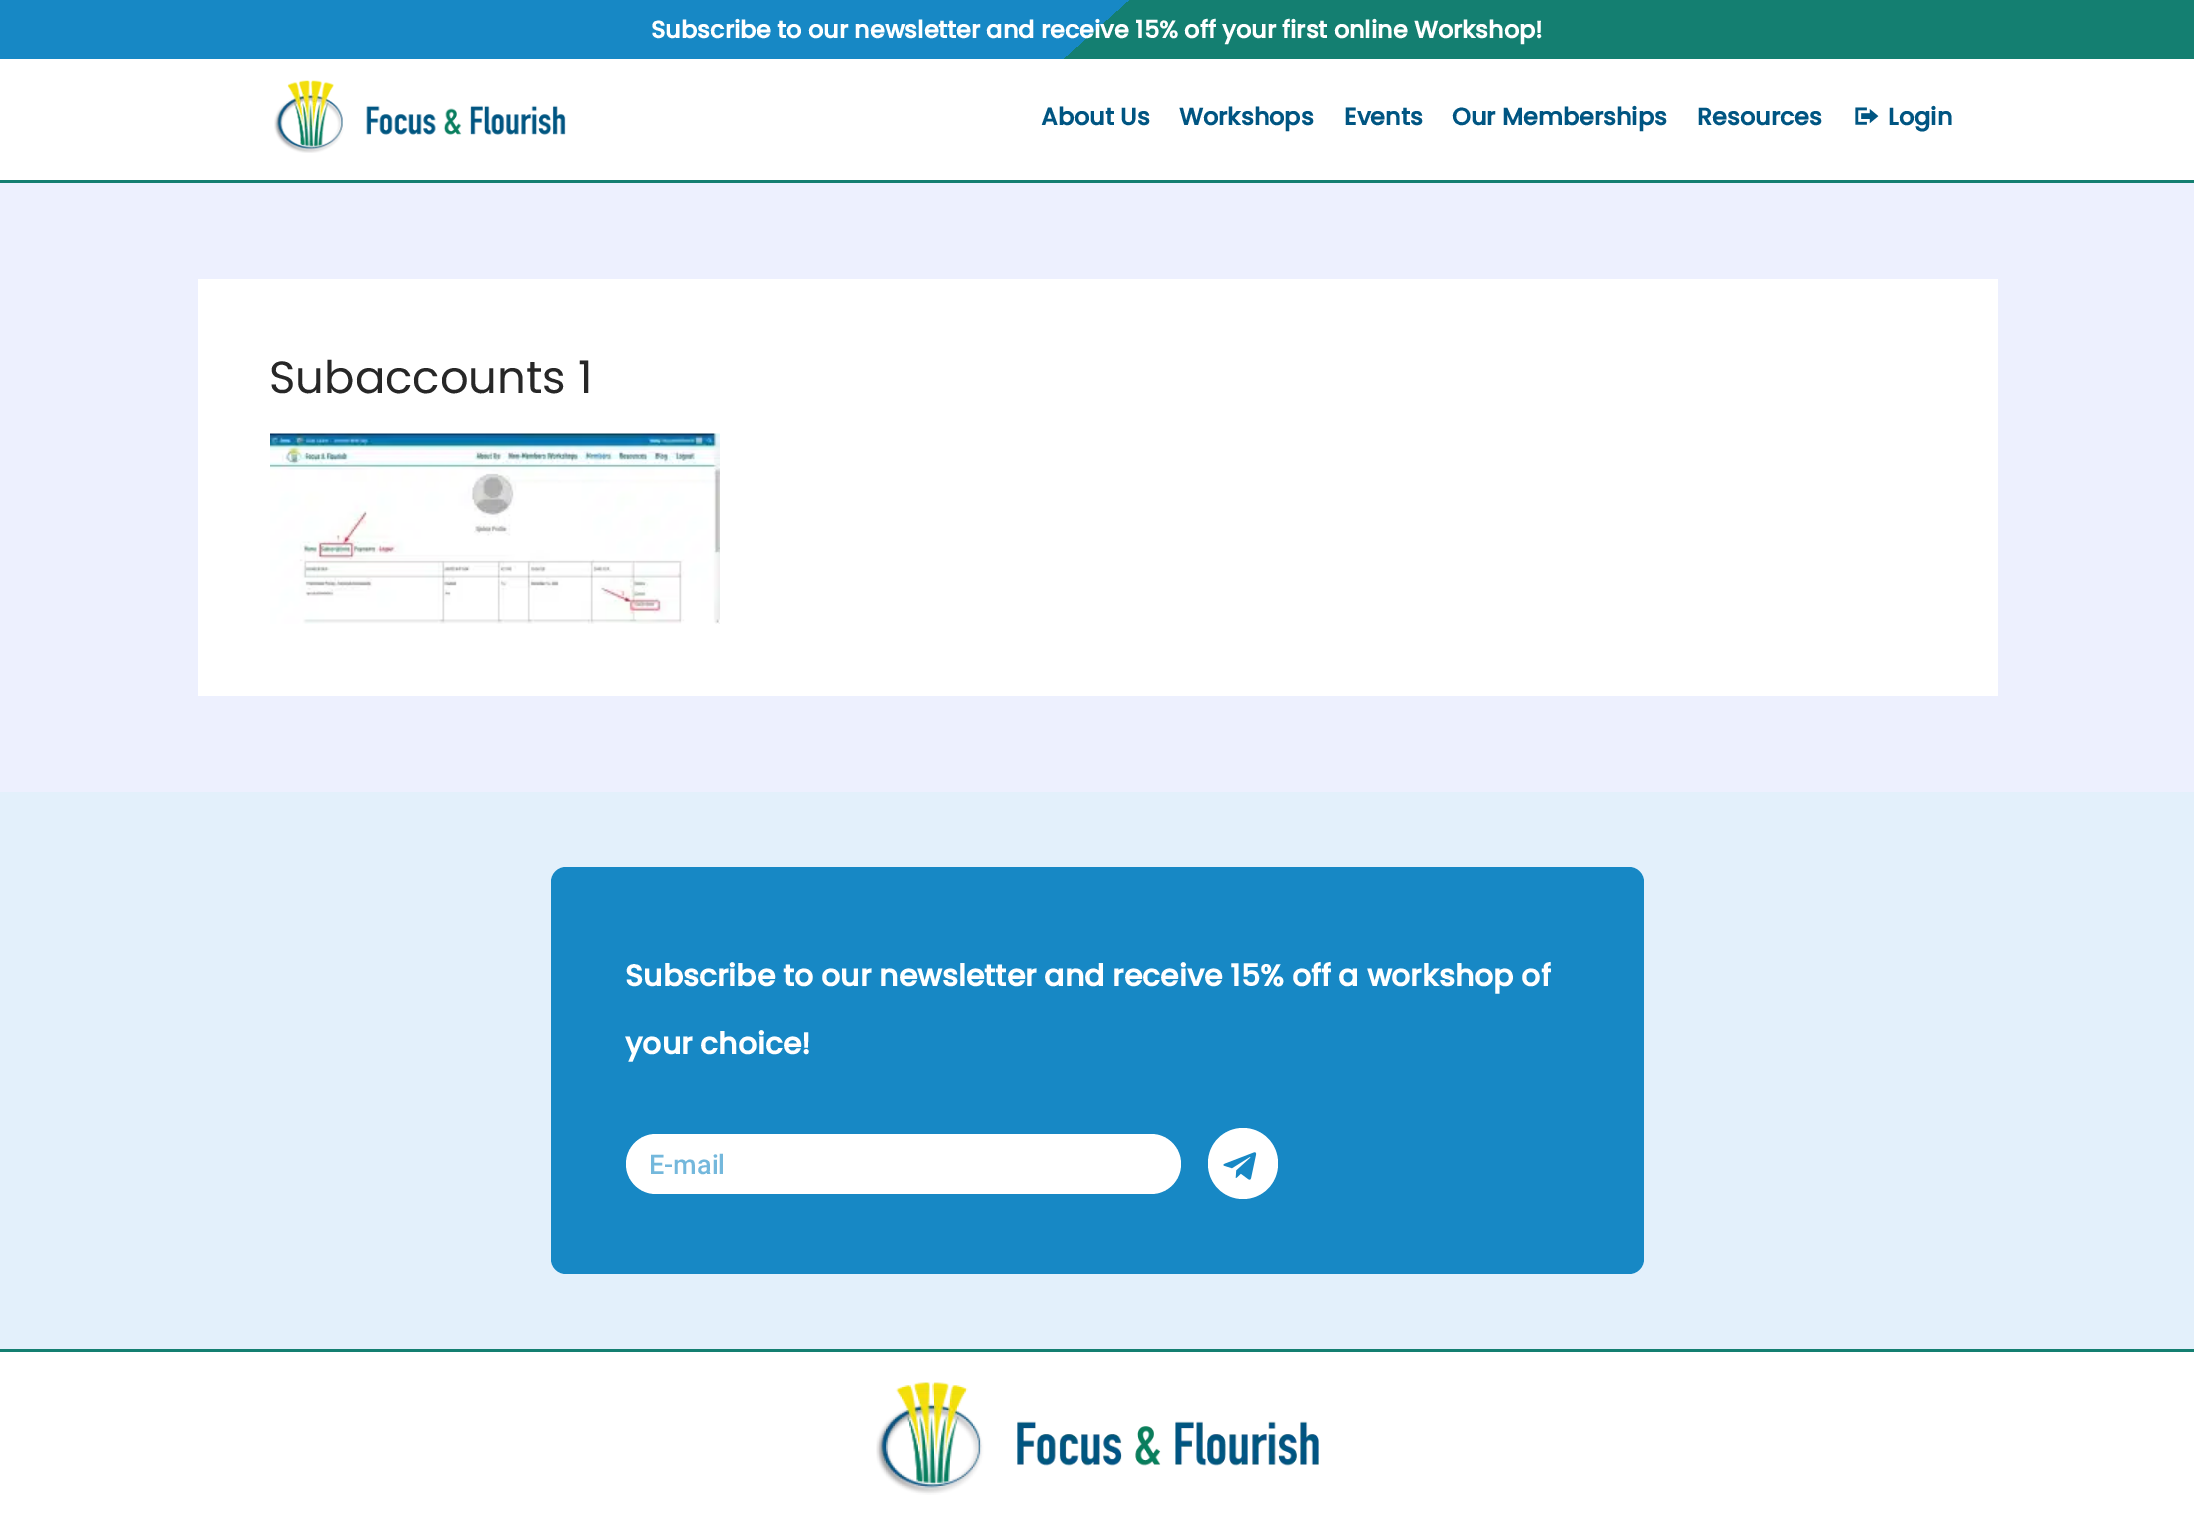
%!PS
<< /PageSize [2194 1529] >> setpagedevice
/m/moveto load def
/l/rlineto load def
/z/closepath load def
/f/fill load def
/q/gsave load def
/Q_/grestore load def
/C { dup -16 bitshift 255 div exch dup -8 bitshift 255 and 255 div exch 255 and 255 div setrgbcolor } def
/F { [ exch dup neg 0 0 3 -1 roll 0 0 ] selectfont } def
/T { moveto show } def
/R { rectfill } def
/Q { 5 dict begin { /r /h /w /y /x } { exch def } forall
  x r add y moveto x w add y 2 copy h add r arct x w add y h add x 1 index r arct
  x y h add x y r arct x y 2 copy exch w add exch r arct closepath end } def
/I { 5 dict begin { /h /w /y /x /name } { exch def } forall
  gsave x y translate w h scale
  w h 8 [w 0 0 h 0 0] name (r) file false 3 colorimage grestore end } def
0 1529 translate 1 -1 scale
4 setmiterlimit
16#EDF0FE C
0 0 2194 1529 R
q 0 0 m 2194 0 l 0 59 l -2194 0 l z clip newpath
<< /ShadingType 2 /ColorSpace /DeviceRGB /Coords [591 -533 1603 591] /Extend [true true] /Function << /FunctionType 3 /Domain [0 1] /Functions [<< /FunctionType 2 /Domain [0 1] /C0 [.09 .533 .773] /C1 [.09 .533 .773] /N 1 >> << /FunctionType 2 /Domain [0 1] /C0 [.078 .498 .443] /C1 [.078 .498 .443] /N 1 >>] /Bounds [.5] /Encode [0 1 0 1] >> >> shfill Q_
/Poppins-Bold 24 F
16#FFFFFF C
(Subscribe to our newsletter and receive 15% off your first online Workshop!) 651 38 T
0 59 2194 121 R
16#147F71 C
0 180 2194 3 R
(1.rgb) 274 80 292 73 I
16#005582 C
(About Us) 1041 125 T
(Workshops) 1179 125 T
(Events) 1344 125 T
(Our Memberships) 1452 125 T
(Resources) 1697 125 T
(2.rgb) 1855 107 24 18 I
(Login) 1888 125 T
16#FFFFFF C
198 279 1800 417 R
/Poppins-Regular 45 F
16#272727 C
(Subaccounts 1) 269 393 T
(3.rgb) 270 433 450 191 I
16#FFFFFF C
0 1352 2194 177 R
16#E3F0FB C
0 792 2194 557 R
16#1788C5 C
551 867 1093 407 15 Q f
/Poppins-Bold 30 F
16#FFFFFF C
(Subscribe to our newsletter and receive 15% off a workshop of) 625 986 T
(your choice!) 625 1054 T
626 1134 555 60 30 Q f
/Roboto-Medium 27 F
16#74B8DC C
(E-mail) 649 1174 T
16#FFFFFF C
1208 1128 70 71 35 Q f
(4.rgb) 1223 1152 34 28 I
16#147F71 C
0 1349 2194 3 R
(5.rgb) 876 1382 443 113 I
showpage
